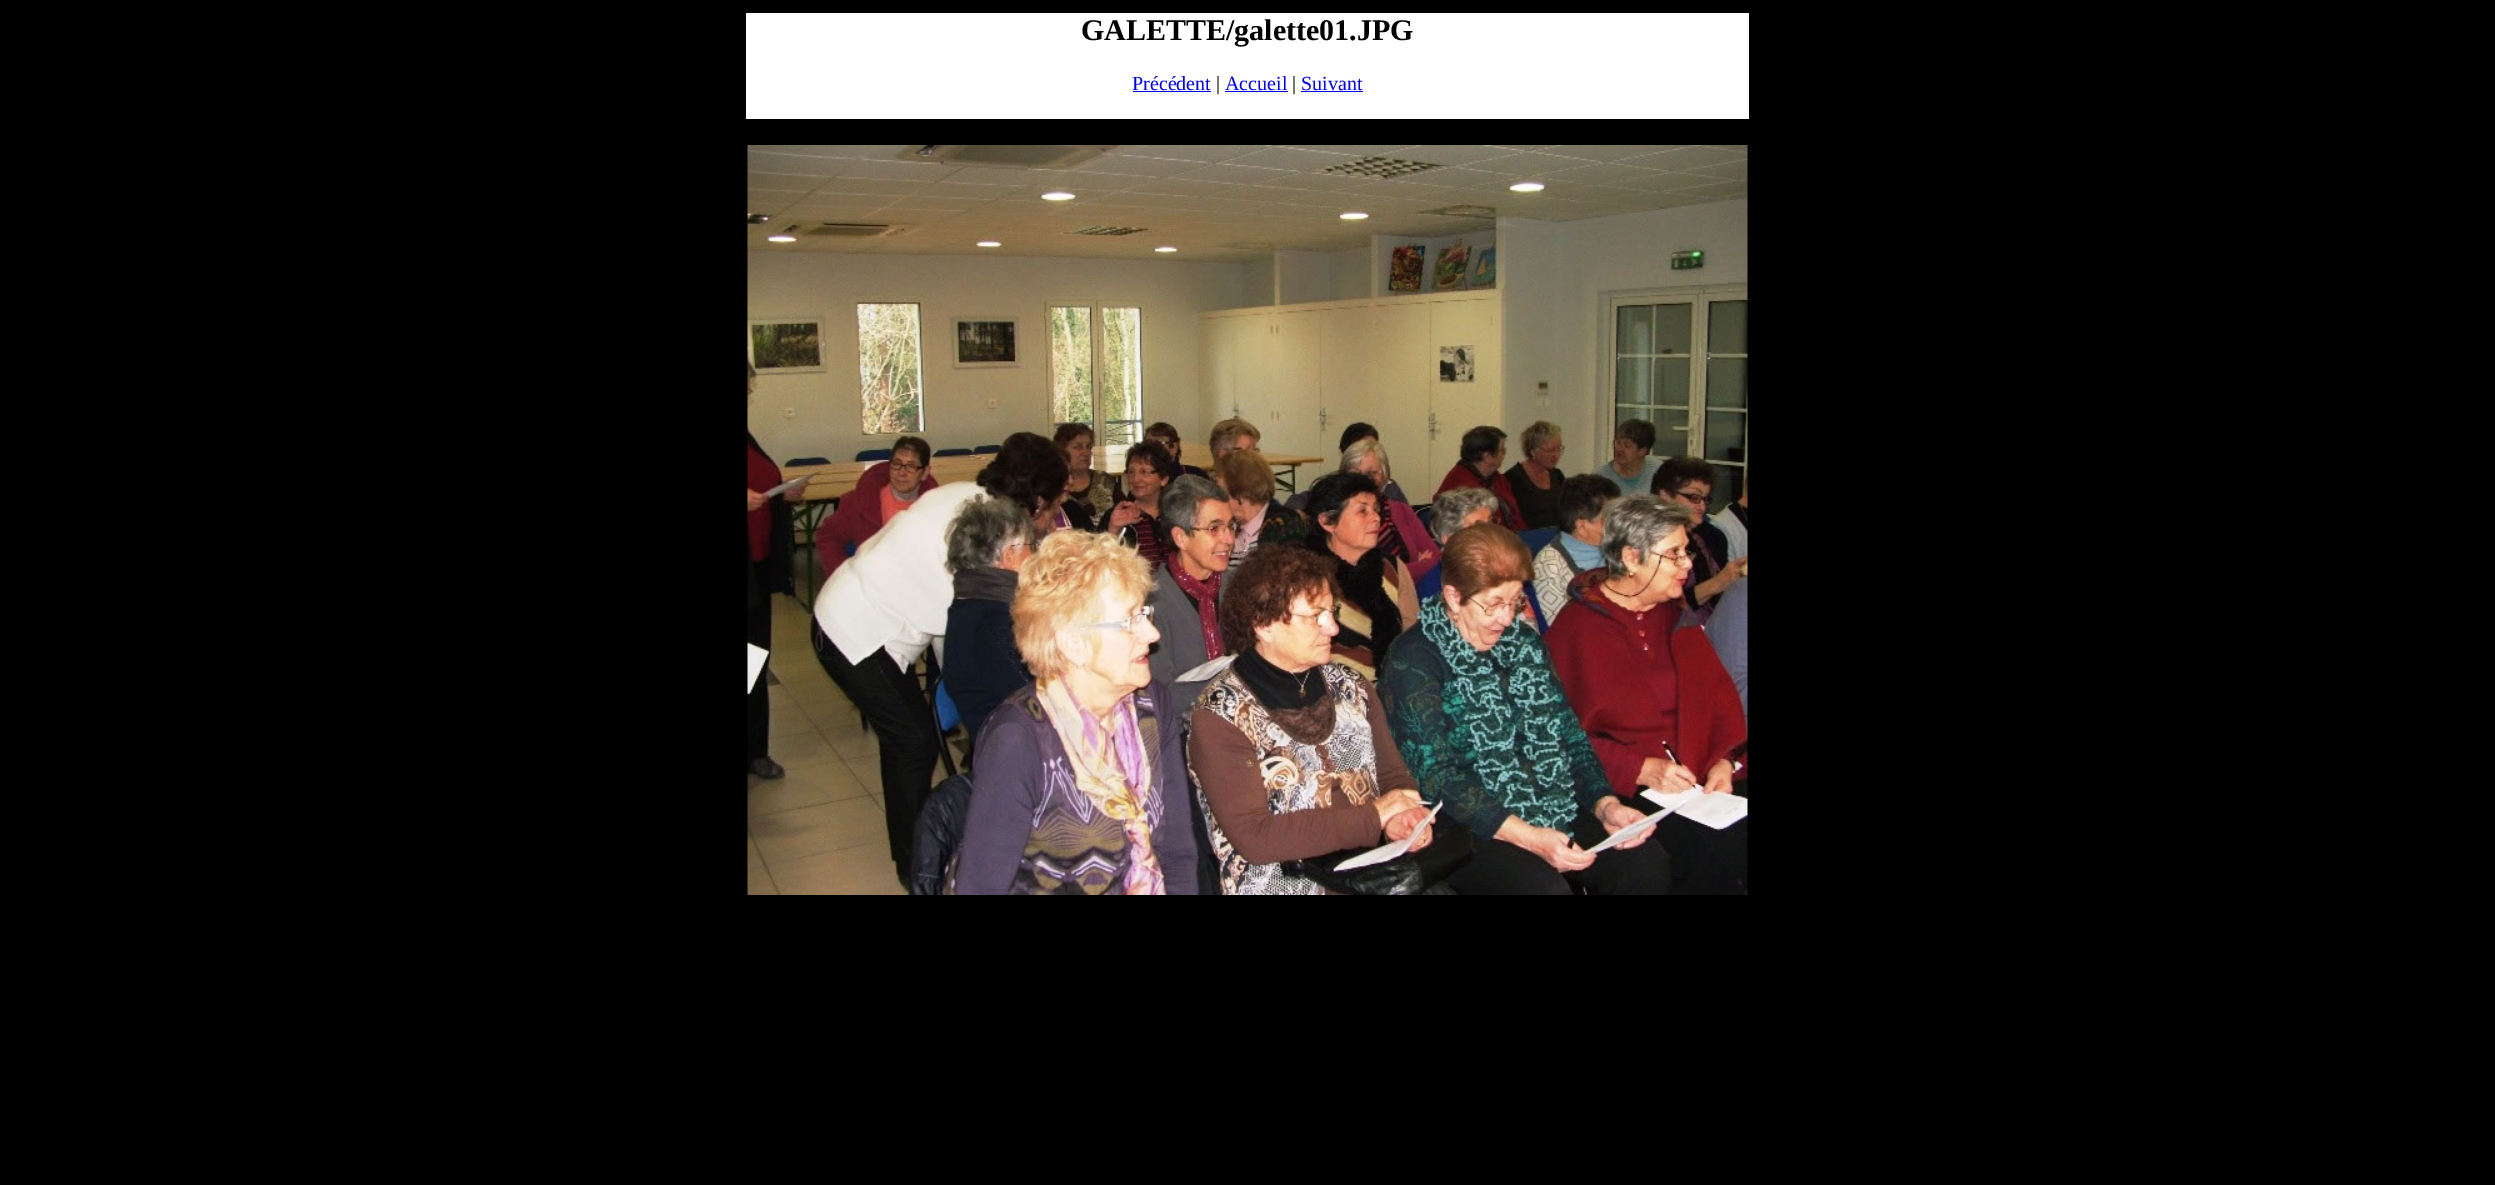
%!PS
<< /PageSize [2495 1185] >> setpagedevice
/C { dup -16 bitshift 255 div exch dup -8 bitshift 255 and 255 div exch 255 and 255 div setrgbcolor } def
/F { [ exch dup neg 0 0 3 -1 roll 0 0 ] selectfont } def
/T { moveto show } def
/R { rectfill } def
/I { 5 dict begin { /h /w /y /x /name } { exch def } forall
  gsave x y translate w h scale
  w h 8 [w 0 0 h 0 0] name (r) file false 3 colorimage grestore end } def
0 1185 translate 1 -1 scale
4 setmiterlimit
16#000000 C
0 0 2495 1185 R
16#FFFFFF C
746 13 1003 106 R
/LiberationSerif-Bold 30 F
16#000000 C
(GALETTE/galette01.JPG) 1081 40 T
/LiberationSerif-Regular 20 F
16#0000EE C
(Précédent) 1132 90 T
1133 91 78 1 R
16#000000 C
(|) 1216 90 T
16#0000EE C
(Accueil) 1225 90 T
1225 91 63 1 R
16#000000 C
(|) 1292 90 T
16#0000EE C
(Suivant) 1301 90 T
1301 91 62 1 R
(1.rgb) 747 145 1001 750 I
showpage
